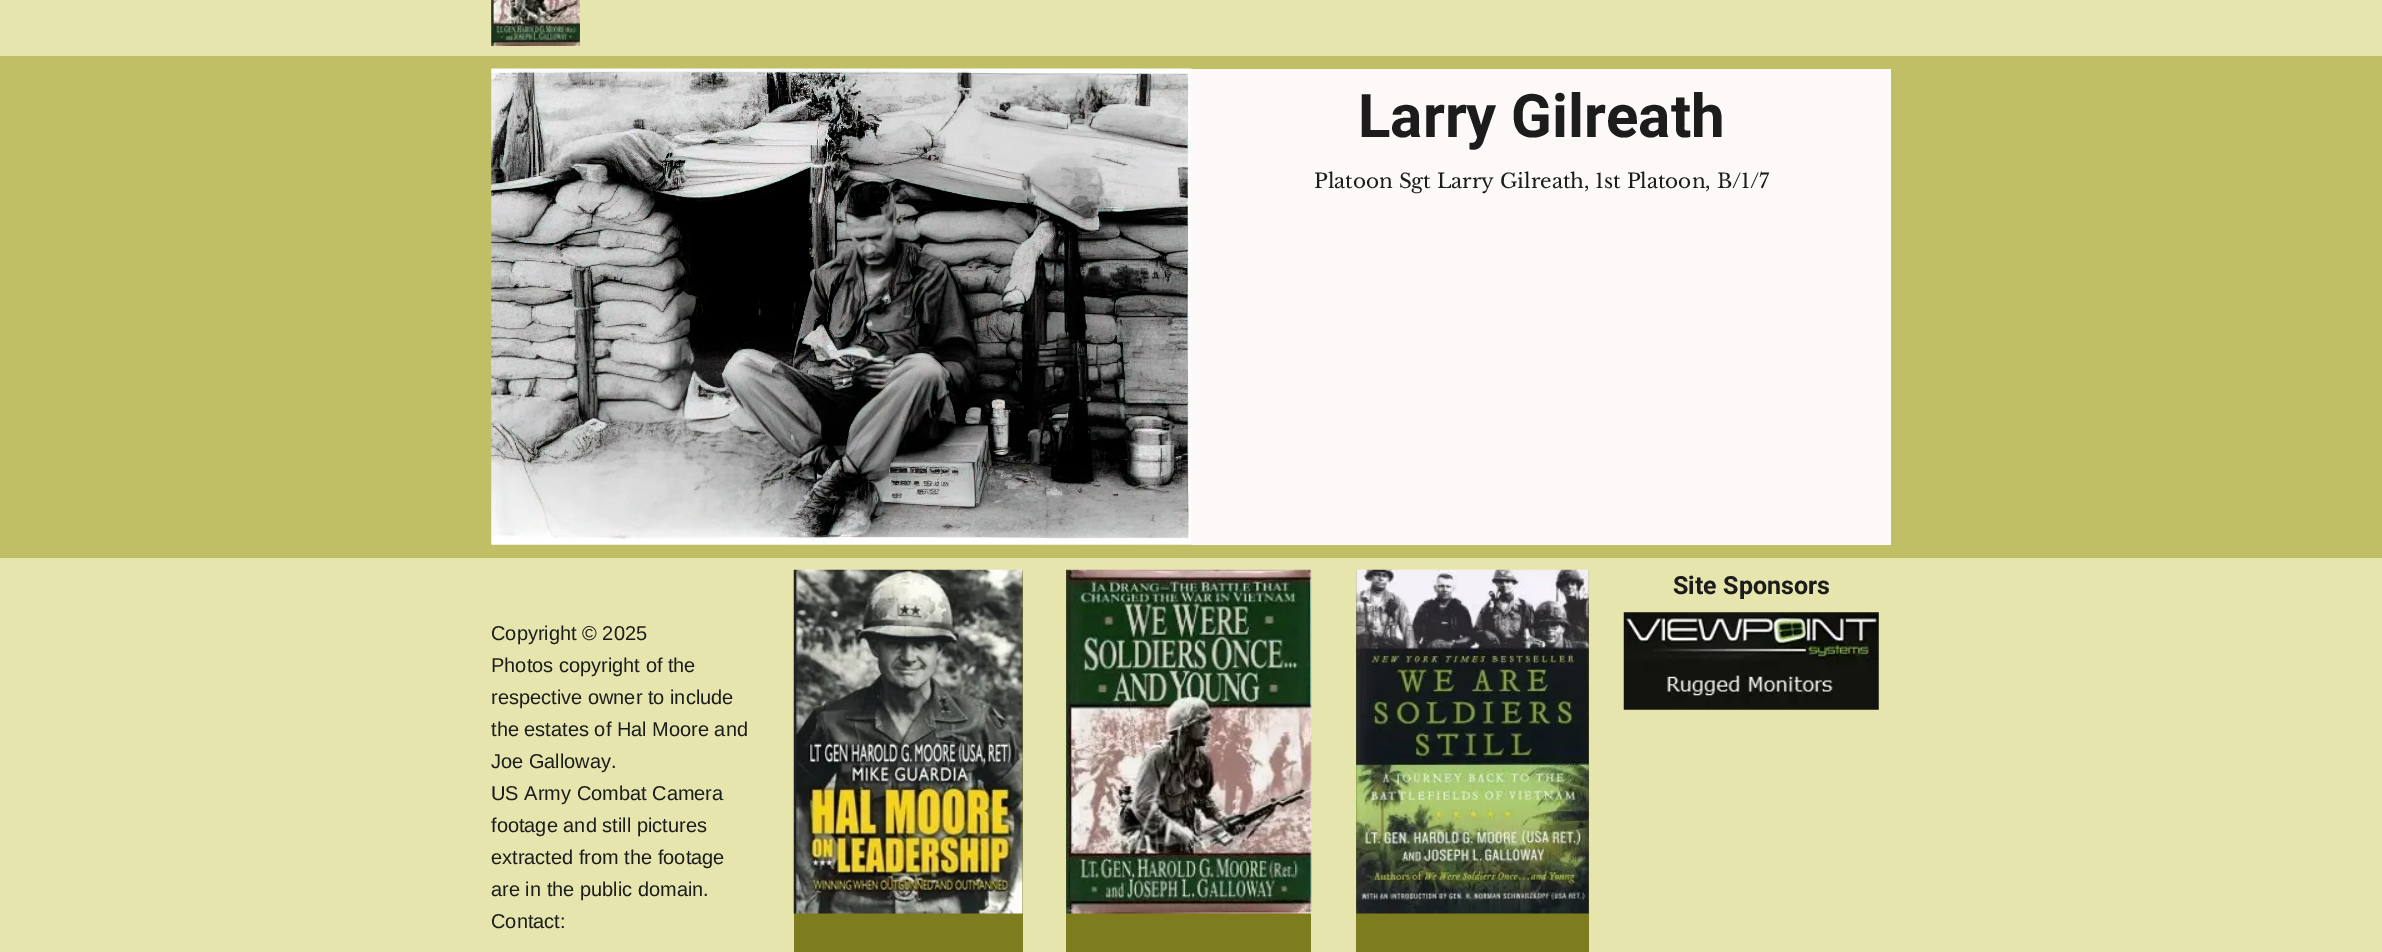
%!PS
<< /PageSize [2382 952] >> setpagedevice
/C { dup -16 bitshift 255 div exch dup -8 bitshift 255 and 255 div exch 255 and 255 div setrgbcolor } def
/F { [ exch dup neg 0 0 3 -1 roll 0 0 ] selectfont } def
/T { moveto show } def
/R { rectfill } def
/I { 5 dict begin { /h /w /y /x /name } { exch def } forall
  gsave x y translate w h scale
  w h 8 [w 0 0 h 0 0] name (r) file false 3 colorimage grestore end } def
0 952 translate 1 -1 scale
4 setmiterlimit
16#C0BF65 C
0 0 2382 952 R
16#E6E5AD C
0 0 2382 56 R
(1.rgb) 491 0 89 46 I
(2.rgb) 491 68 701 477 I
16#FEF9F9 C
1191 69 700 476 R
/Roboto-Bold 60 F
16#1C1C1C C
(Larry Gilreath) 1358 137 T
/LibreBaskerville-Regular 20 F
(Platoon Sgt Larry Gilreath, 1st Platoon, B/1/7) 1314 188 T
16#E6E5AD C
0 558 2382 394 R
16#7D7C1F C
794 570 229 382 R
(3.rgb) 793 569 230 345 I
1066 570 245 382 R
(4.rgb) 1066 569 246 345 I
1356 570 233 382 R
(5.rgb) 1356 569 233 345 I
/Roboto-Bold 25 F
16#1C1C1C C
(Site Sponsors) 1673 594 T
(6.rgb) 1623 612 256 98 I
/LiberationSans-Regular 20 F
(Copyright © 2025) 491 640 T
(Photos copyright of the) 491 672 T
(respective owner to include) 491 704 T
(the estates of Hal Moore and) 491 736 T
(Joe Galloway.) 491 768 T
(US Army Combat Camera) 491 800 T
(footage and still pictures) 491 832 T
(extracted from the footage) 491 864 T
(are in the public domain.) 491 896 T
(Contact:) 491 928 T
showpage
